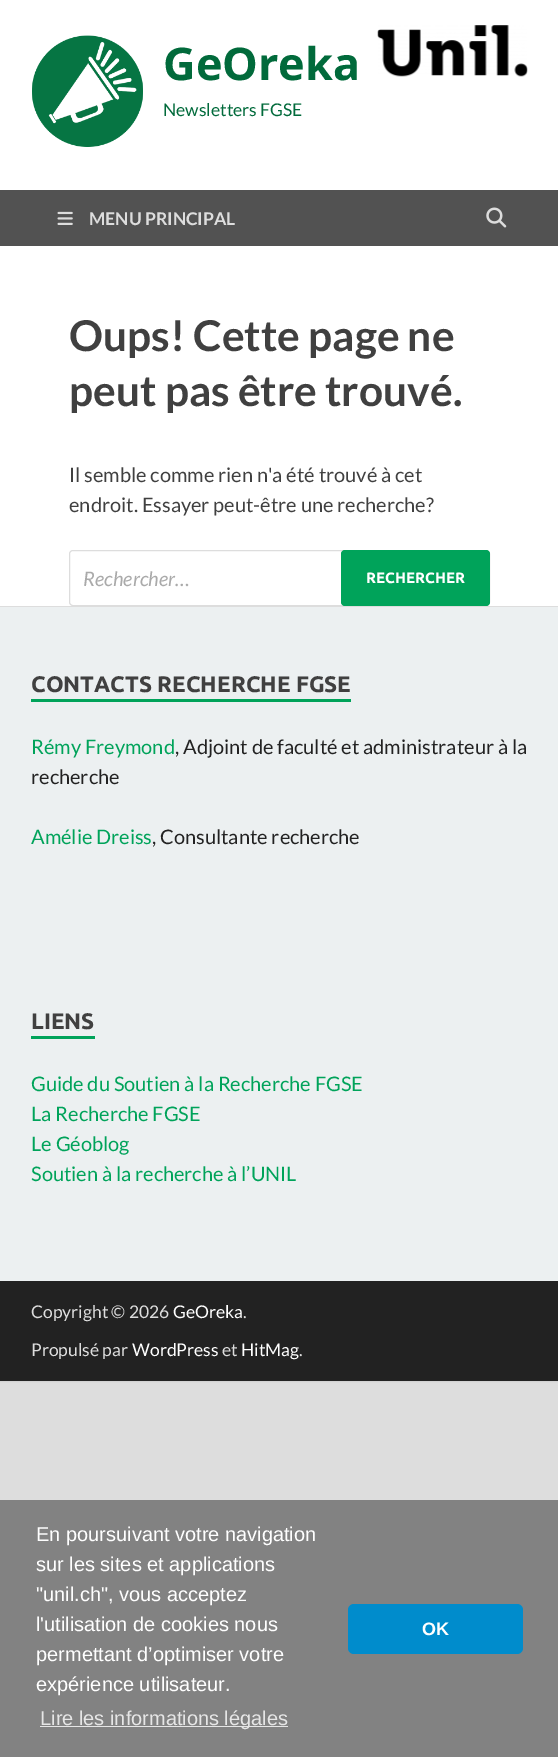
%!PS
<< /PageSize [558 1757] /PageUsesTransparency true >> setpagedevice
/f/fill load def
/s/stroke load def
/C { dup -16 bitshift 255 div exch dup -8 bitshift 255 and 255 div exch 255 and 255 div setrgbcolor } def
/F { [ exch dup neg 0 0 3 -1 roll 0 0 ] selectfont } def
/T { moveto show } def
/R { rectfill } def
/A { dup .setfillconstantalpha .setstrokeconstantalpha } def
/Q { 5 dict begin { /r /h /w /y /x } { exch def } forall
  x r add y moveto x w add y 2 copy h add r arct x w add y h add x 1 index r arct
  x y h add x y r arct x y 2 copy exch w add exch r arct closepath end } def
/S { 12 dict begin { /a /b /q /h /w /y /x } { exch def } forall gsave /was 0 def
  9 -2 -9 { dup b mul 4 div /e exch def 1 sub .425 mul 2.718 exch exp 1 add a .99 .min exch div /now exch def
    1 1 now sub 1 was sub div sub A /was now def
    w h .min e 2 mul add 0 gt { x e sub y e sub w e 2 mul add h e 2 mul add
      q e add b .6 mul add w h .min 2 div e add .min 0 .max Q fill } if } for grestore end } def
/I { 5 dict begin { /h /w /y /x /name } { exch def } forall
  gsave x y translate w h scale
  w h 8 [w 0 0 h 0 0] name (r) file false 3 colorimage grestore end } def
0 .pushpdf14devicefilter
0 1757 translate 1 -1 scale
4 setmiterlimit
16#DDDDDD C
0 0 558 1757 R
16#BBBBBB C
0 0 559 1381 0 1 1 S
16#FFFFFF C
0 0 558 606 R
(1.rgb) 32 35 111 112 I
/OpenSans-Bold 45 F
16#016A3B C
(GeOreka) 163 80 T
/Lato-Regular 17.5 F
(Newsletters FGSE) 163 116 T
(2.rgb) 377 25 151 52 I
16#525252 C
0 190 558 56 R
(3.rgb) 57 211 16 14 I
/Lato-Bold 17.5 F
16#DDDDDD C
(MENU PRINCIPAL) 89 225 T
(4.rgb) 486 207 21 21 I
/Lato-Bold 42.5 F
16#404040 C
(Oups! Cette page ne) 69 351 T
(peut pas être trouvé.) 69 406 T
/Lato-Regular 20 F
(Il semble comme rien n'a été trouvé à cet) 69 482 T
(endroit. Essayer peut-être une recherche?) 69 512 T
16#DDDDDD C
69.5 550.5 420 55 3.5 Q s
/Lato-Italic 20 F
16#AAAAAA C
(Rechercher…) 83 586 T
16#00A35A C
341 550 149 56 4 Q f
/Ubuntu-Bold 15 F
16#FFFFFF C
(RECHERCHER) 366 583 T
16#ECF0F1 C
0 607 558 674 R
16#DDDDDD C
0 606 558 1 R
16#00A35A C
31 699 320 3 R
/Ubuntu-Bold 22.5 F
16#404040 C
(CONTACTS RECHERCHE FGSE) 31 692 T
/Lato-Regular 20 F
16#00A35A C
(Rémy Freymond) 31 754 T
16#222222 C
(, Adjoint de faculté et administrateur à la) 175 754 T
(recherche) 31 784 T
16#00A35A C
(Amélie Dreiss) 31 844 T
16#222222 C
(, Consultante recherche) 152 844 T
16#00A35A C
31 1036 64 3 R
/Ubuntu-Bold 22.5 F
16#404040 C
(LIENS) 31 1029 T
/Lato-Regular 20 F
16#00A35A C
(Guide du Soutien à la Recherche FGSE) 31 1091 T
(La Recherche FGSE) 31 1121 T
(Le Géoblog) 31 1151 T
(Soutien à la recherche à l’UNIL) 31 1181 T
16#222222 C
0 1281 558 100 R
/Lato-Regular 17.5 F
16#DDDDDD C
(Copyright © 2026) 31 1318 T
16#FFFFFF C
(GeOreka) 173 1318 T
16#DDDDDD C
(.) 243 1318 T
(Propulsé par) 31 1356 T
16#FFFFFF C
(WordPress) 132 1356 T
16#DDDDDD C
(et) 222 1356 T
16#FFFFFF C
(HitMag) 241 1356 T
16#DDDDDD C
(.) 299 1356 T
16#828282 C
0 1500 558 257 R
/LiberationSans-Regular 20 F
16#FFFFFF C
(En poursuivant votre navigation) 36 1541 T
(sur les sites et applications) 36 1571 T
("unil.ch", vous acceptez) 36 1601 T
(l'utilisation de cookies nous) 36 1631 T
(permettant d’optimiser votre) 36 1661 T
(expérience utilisateur.) 36 1691 T
16#E6E6E6 C
40 1726 248 1 R
(Lire les informations légales) 40 1725 T
16#008CCC C
348 1604 175 50 6 Q f
/LiberationSans-Bold 18 F
16#FFFFFF C
(OK) 422 1635 T
.poppdf14devicefilter showpage
